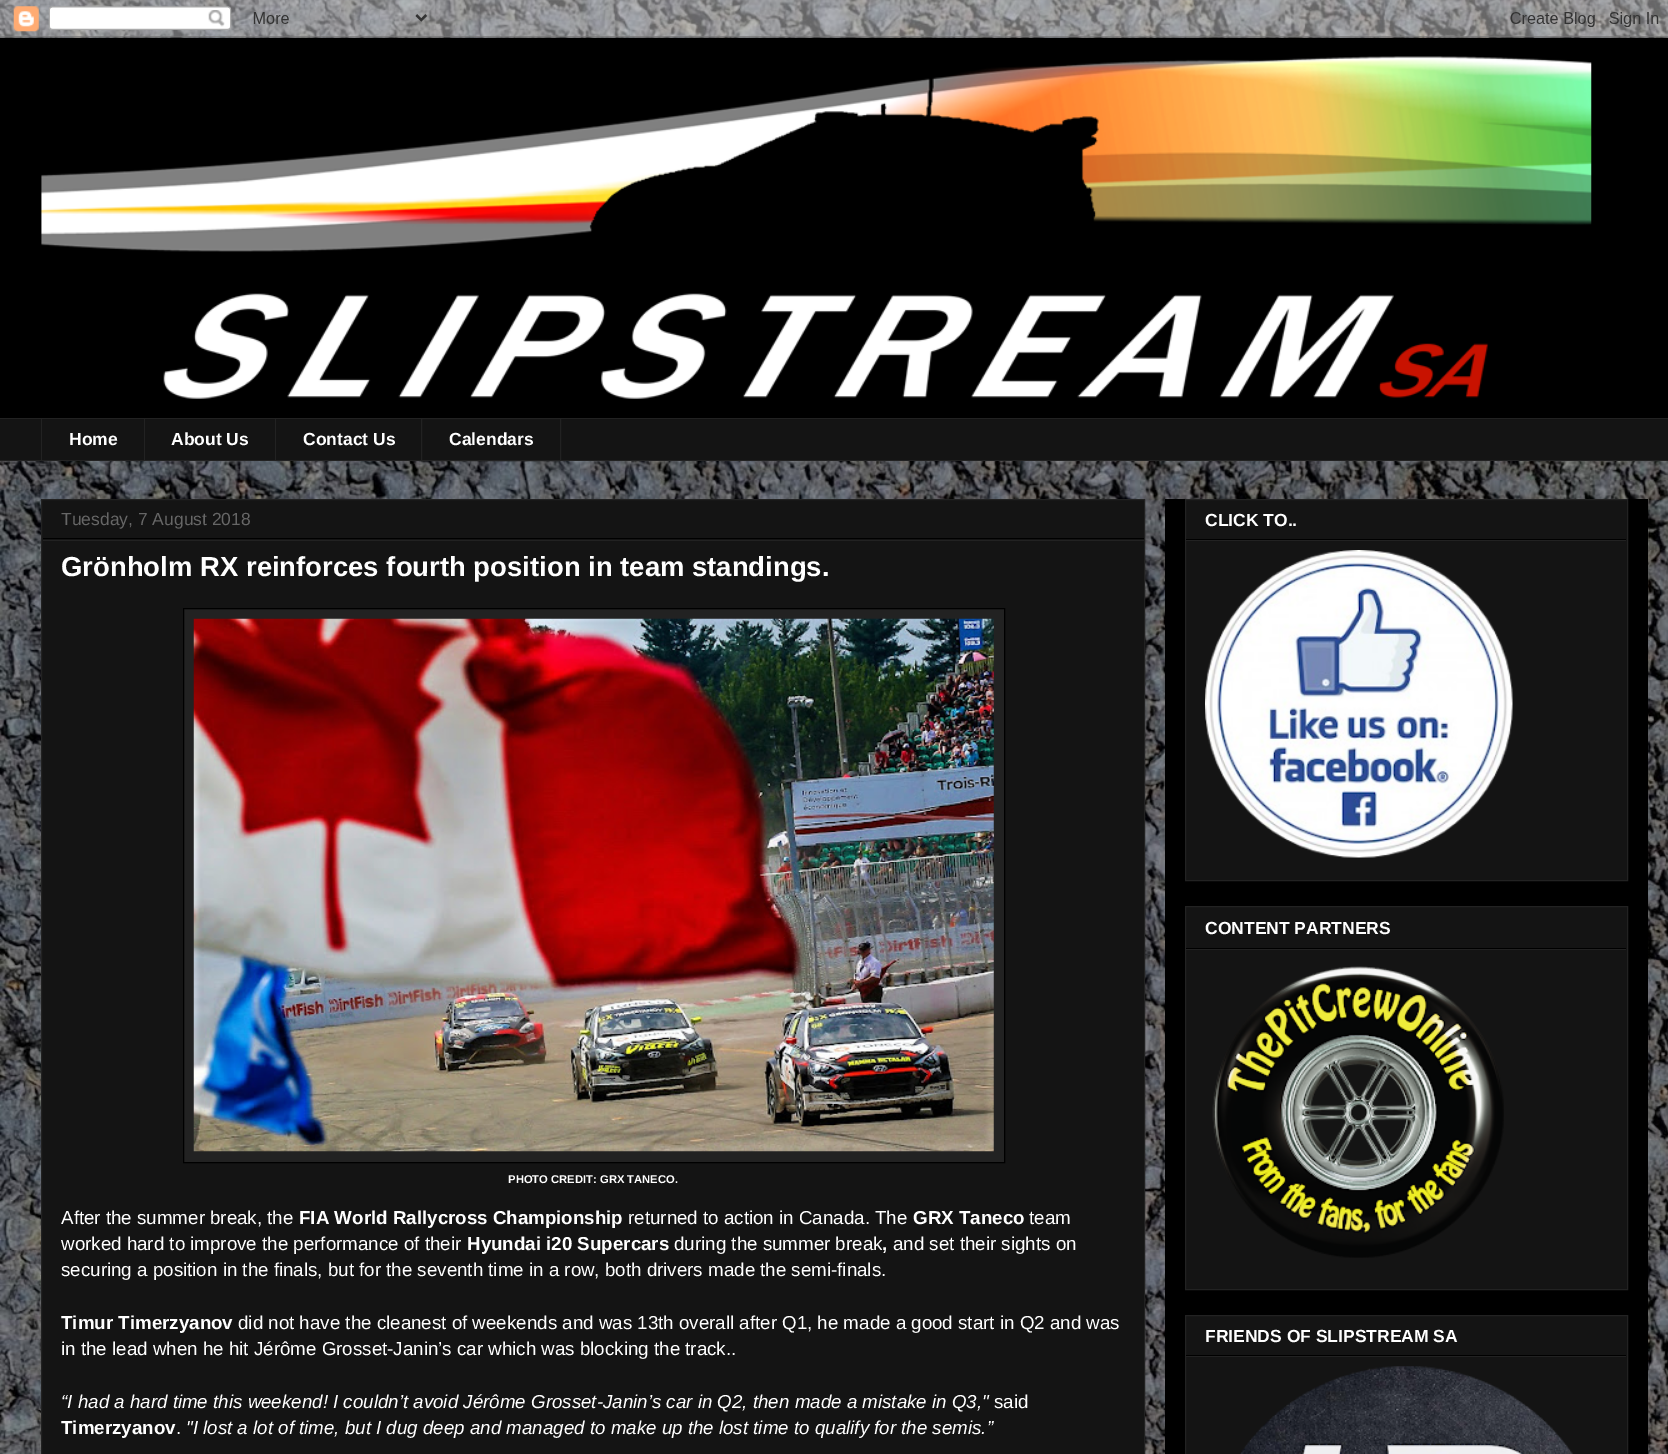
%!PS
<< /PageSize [1668 1454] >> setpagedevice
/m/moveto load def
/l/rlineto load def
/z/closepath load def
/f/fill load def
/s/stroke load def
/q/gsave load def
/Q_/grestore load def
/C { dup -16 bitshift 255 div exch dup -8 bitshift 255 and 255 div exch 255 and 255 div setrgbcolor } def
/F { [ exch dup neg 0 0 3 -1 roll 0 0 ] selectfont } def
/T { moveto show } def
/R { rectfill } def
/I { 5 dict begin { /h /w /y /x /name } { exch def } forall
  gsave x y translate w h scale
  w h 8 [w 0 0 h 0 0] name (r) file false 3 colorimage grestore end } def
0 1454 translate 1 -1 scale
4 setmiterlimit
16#FFFFFF C
0 0 1668 1454 R
(1.rgb) 0 0 1668 1454 I
(2.rgb) 0 0 1668 38 I
16#000000 C
0 38 1668 380 R
(3.rgb) 41 56 1551 343 I
16#141414 C
0 419 1668 41 R
16#222222 C
0 418 1668 1 R
41 418 1 43 R
/LiberationSans-Bold 17.5 F
16#FFFFFF C
(Home) 69 445 T
16#222222 C
144 418 1 43 R
16#FFFFFF C
(About Us) 171 445 T
16#222222 C
275 418 1 43 R
16#FFFFFF C
(Contact Us) 303 445 T
16#222222 C
421.5 418.5 139 42 rectstroke
16#FFFFFF C
(Calendars) 449 445 T
16#222222 C
0 460 1668 1 R
16#141414 C
41.5 499.5 m 1103 0 l 0 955 l -1103 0 l z q f Q_
16#222222 C
s
16#000000 C
43 538 1101 1 R
/LiberationSans-Regular 17.5 F
16#666666 C
(Tuesday, 7 August 2018) 61 525 T
16#222222 C
43 540 1101 1 R
/LiberationSans-Bold 27.5 F
16#FFFFFF C
(Grönholm RX reinforces fourth position in team standings.) 61 576 T
16#222222 C
183.5 608.5 m 821 0 l 0 554 l -821 0 l z q f Q_
16#000000 C
s
(4.rgb) 193 618 801 534 I
/LiberationSans-Bold 11.25 F
16#FFFFFF C
(PHOTO CREDIT: GRX TANECO.) 508 1183 T
/LiberationSans-Regular 18.75 F
(After the summer break, the) 61 1224 T
/LiberationSans-Bold 18.75 F
(FIA World Rallycross Championship) 299 1224 T
/LiberationSans-Regular 18.75 F
(returned to action in Canada. The) 628 1224 T
/LiberationSans-Bold 18.75 F
(GRX Taneco) 913 1224 T
/LiberationSans-Regular 18.75 F
(team) 1029 1224 T
(worked hard to improve the performance of their) 61 1250 T
/LiberationSans-Bold 18.75 F
(Hyundai i20 Supercars) 467 1250 T
/LiberationSans-Regular 18.75 F
(during the summer break) 674 1250 T
/LiberationSans-Bold 18.75 F
(,) 882 1250 T
/LiberationSans-Regular 18.75 F
(and set their sights on) 893 1250 T
(securing a position in the finals, but for the seventh time in a row, both drivers made the semi-finals.) 61 1276 T
/LiberationSans-Bold 18.75 F
(Timur Timerzyanov) 61 1329 T
/LiberationSans-Regular 18.75 F
(did not have the cleanest of weekends and was 13th overall after Q1, he made a good start in Q2 and was) 238 1329 T
(in the lead when he hit Jérôme Grosset-Janin’s car which was blocking the track..) 61 1355 T
/LiberationSans-Italic 18.75 F
(“I had a hard time this weekend! I couldn’t avoid Jérôme Grosset-Janin’s car in Q2, then made a mistake in Q3,") 61 1408 T
/LiberationSans-Regular 18.75 F
(said) 994 1408 T
/LiberationSans-Bold 18.75 F
(Timerzyanov) 61 1434 T
/LiberationSans-Regular 18.75 F
(.) 176 1434 T
/LiberationSans-Italic 18.75 F
("I lost a lot of time, but I dug deep and managed to make up the lost time to qualify for the semis.”) 186 1434 T
16#000000 C
1165 499 483 955 R
16#141414 C
1185.5 499.5 m 442 0 l 0 381 l -442 0 l z q f Q_
16#222222 C
s
16#000000 C
1186 539 440 1 R
/LiberationSans-Bold 17.5 F
16#FFFFFF C
(CLICK TO..) 1205 526 T
16#222222 C
1186 540 440 1 R
(5.rgb) 1205 550 308 308 I
16#141414 C
1185.5 906.5 m 442 0 l 0 383 l -442 0 l z q f Q_
16#222222 C
s
16#000000 C
1186 948 440 1 R
16#FFFFFF C
(CONTENT PARTNERS) 1205 934 T
16#222222 C
1186 949 440 1 R
(6.rgb) 1212 966 292 292 I
16#141414 C
1185.5 1315.5 m 442 0 l 0 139 l -442 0 l z q f Q_
16#222222 C
s
16#000000 C
1186 1355 440 1 R
16#FFFFFF C
(FRIENDS OF SLIPSTREAM SA) 1205 1342 T
16#222222 C
1186 1356 440 1 R
(7.rgb) 1240 1366 333 88 I
showpage
